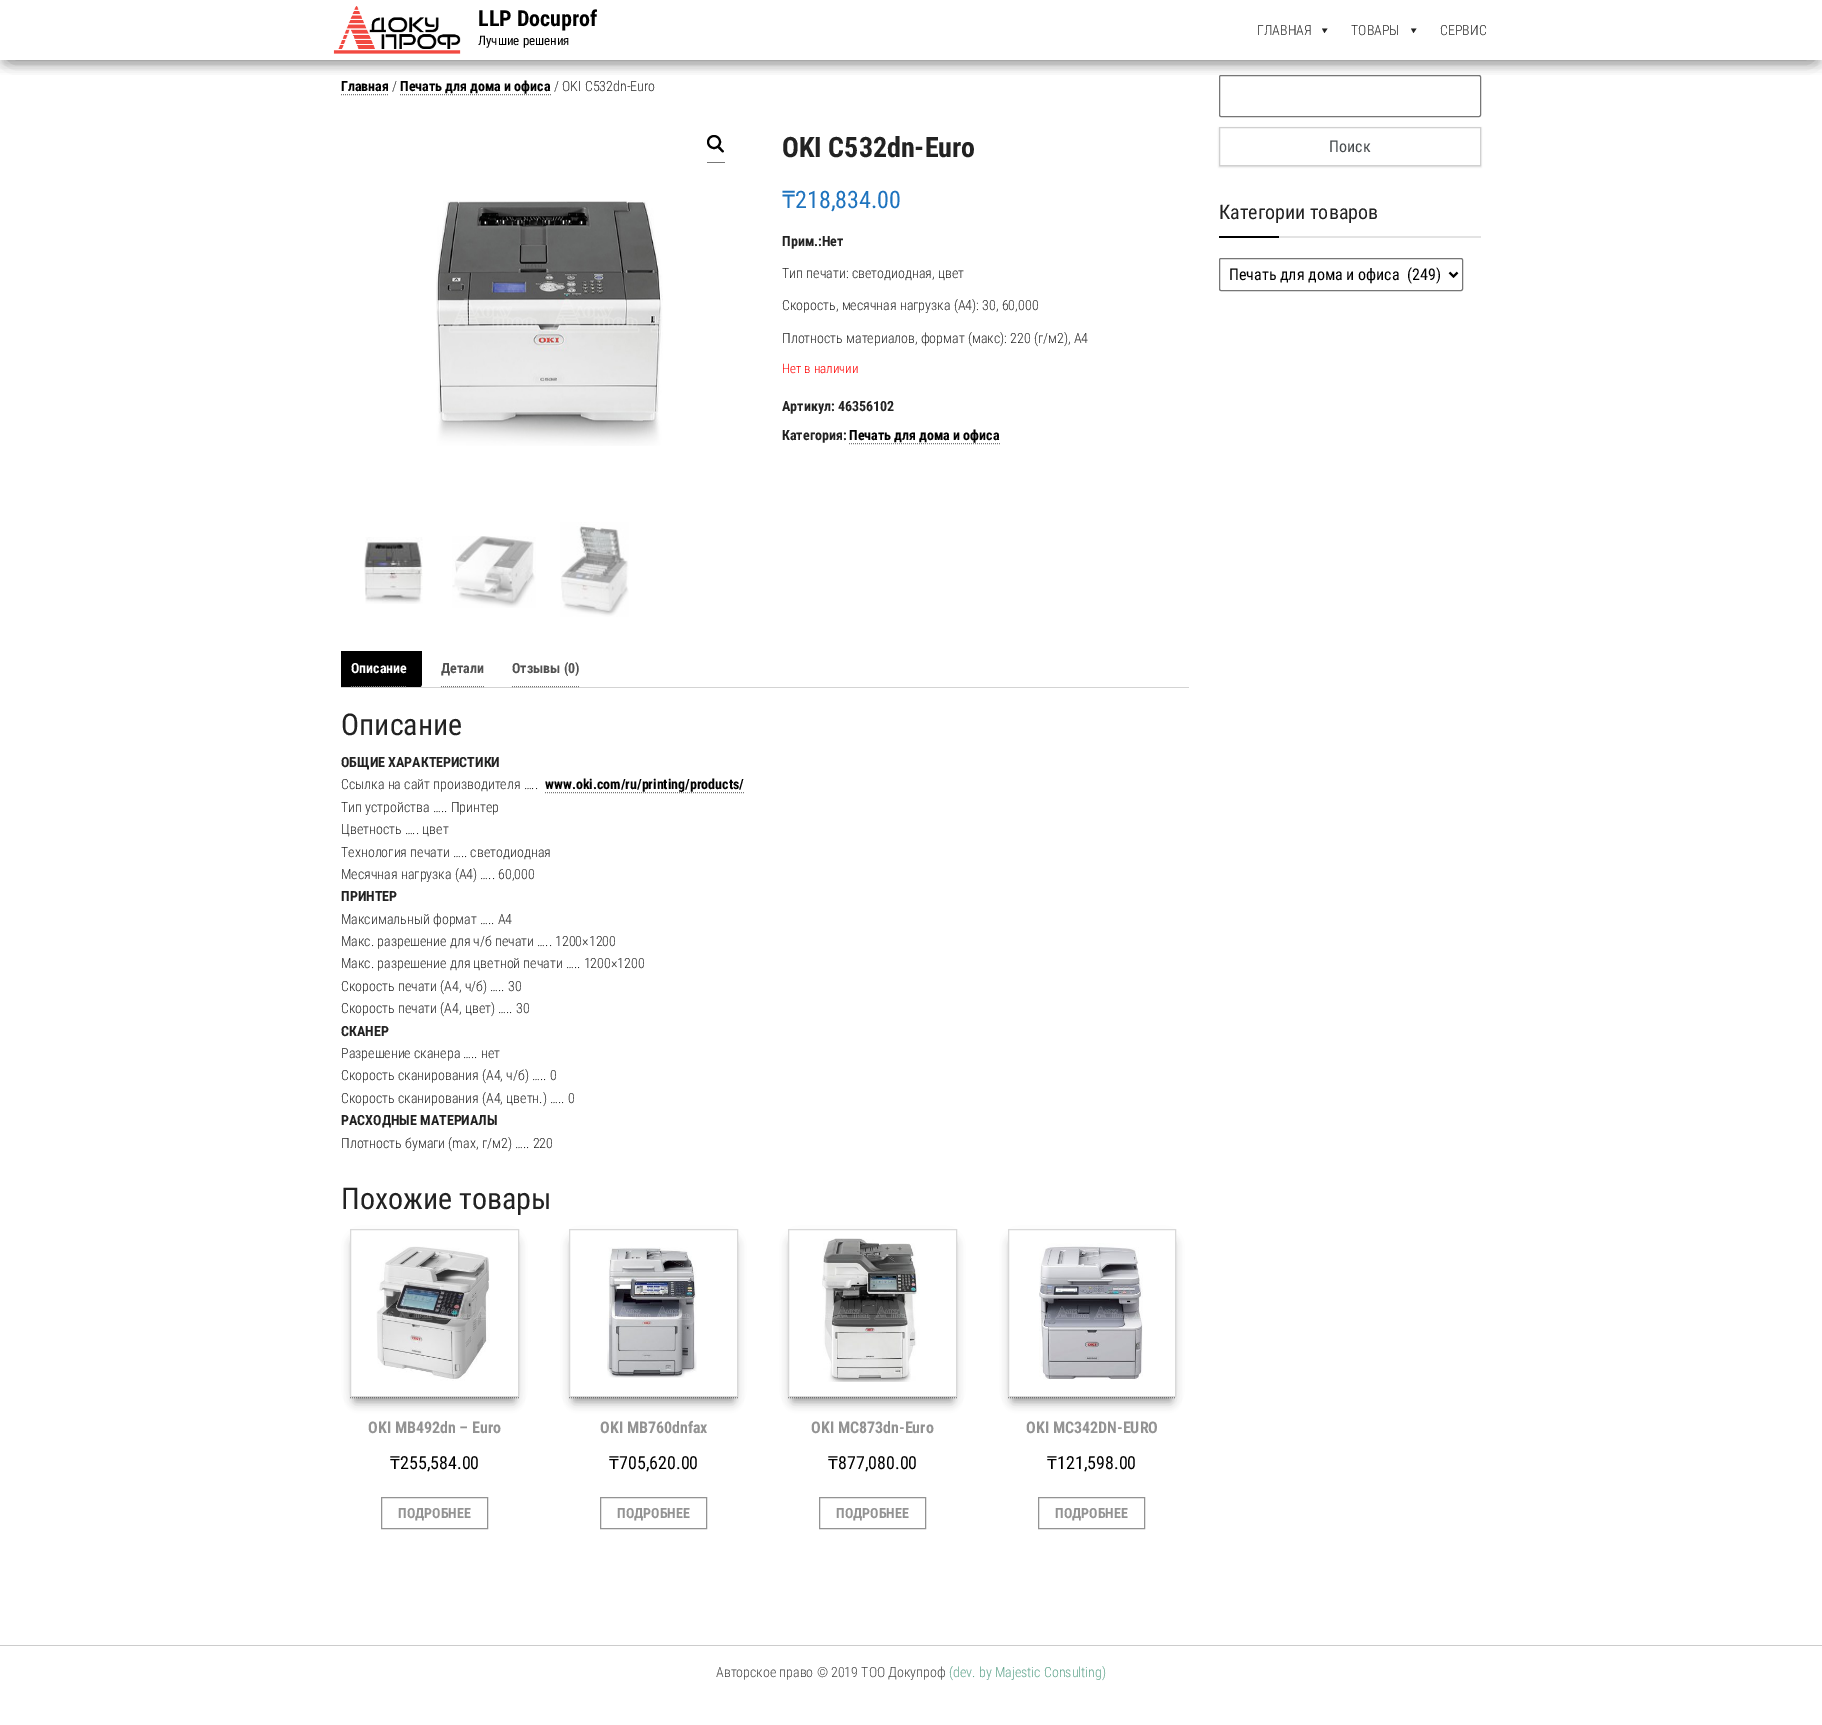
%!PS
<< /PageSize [1822 1725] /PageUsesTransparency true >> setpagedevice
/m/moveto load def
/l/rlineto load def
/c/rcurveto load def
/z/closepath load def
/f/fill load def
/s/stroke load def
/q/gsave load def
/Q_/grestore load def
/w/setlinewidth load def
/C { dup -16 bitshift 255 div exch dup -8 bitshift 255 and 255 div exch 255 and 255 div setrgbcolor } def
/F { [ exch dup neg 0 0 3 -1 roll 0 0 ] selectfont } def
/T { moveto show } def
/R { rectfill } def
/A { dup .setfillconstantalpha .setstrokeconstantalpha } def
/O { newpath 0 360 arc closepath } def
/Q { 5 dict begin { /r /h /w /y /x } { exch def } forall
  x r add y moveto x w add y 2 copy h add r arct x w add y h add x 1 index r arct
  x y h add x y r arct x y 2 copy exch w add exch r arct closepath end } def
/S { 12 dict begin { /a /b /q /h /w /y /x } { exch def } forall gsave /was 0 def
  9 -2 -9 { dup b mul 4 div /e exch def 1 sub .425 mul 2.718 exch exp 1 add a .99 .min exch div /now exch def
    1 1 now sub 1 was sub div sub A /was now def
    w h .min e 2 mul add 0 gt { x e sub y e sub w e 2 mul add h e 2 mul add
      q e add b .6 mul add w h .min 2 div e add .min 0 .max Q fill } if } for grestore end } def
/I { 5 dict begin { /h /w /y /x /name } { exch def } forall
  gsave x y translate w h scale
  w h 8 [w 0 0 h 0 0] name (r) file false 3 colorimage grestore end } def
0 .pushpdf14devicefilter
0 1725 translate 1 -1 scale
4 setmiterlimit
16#FFFFFF C
0 0 1822 1725 R
16#767676 C
1219.5 75.5 261 41 1.5 Q s
q
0 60 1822 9 rectclip
16#000000 C
5 13 1812 50 0 5 .2 S
Q_
q
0 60 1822 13 rectclip
16#000000 C
0 3 1822 60 0 10 .12 S
Q_
q
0 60 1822 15 rectclip
16#000000 C
12 22 1798 36 0 10 .42 S
Q_
(1.rgb) 333 6 128 48 I
/RobotoCondensed-Bold 22 F
16#000000 C
(LLP Docuprof) 478 26 T
/RobotoCondensed-Regular 13 F
(Лучшие решения) 478 45 T
/RobotoCondensed-Light 14 F
16#222222 C
(ГЛАВНАЯ) 1257 35 T
1327.5 28.5 m -3 4.5 l -2.5 -4.5 l z f
(ТОВАРЫ) 1351 35 T
1416.5 28.5 m -3 4.5 l -2.5 -4.5 l z f
(СЕРВИС) 1440 35 T
/RobotoCondensed-Bold 14 F
16#000000 C
(Главная) 341 91 T
16#777777 C
[1 1] 0 setdash
341 94.5 m 48 0 l s
/RobotoCondensed-Light 14 F
16#222222 C
(/) 392 91 T
/RobotoCondensed-Bold 14 F
16#000000 C
(Печать для дома и офиса) 400 91 T
16#777777 C
400 94.5 m 151 0 l s
/RobotoCondensed-Light 14 F
16#222222 C
(/ OKI C532dn-Euro) 554 91 T
16#777777 C
707 162 18 1 R
16#000000 C
2 w
[] 0 setdash
714 142 6 O s
718 146.5 m 1 -1 3 1.5 3.5 2 c .5 1 3.5 2.5 2 3.5 c -1 1.5 -3 -1.5 -3.5 -2 c -.5 -.5 -3 -2 -2 -3.5 c z f
(2.rgb) 436 200 227 246 I
(3.rgb) 364 537 59 67 I
(4.rgb) 452 536 84 72 I
(5.rgb) 560 522 69 95 I
/RobotoCondensed-Bold 28 F
16#222222 C
(OKI C532dn-Euro) 782 157 T
/NotoSans-Regular 24 F
16#1E73BE C
(₸) 782 208 T
/RobotoCondensed-Regular 24 F
(218,834.00) 795 208 T
/RobotoCondensed-Bold 14 F
16#222222 C
(Прим.:Нет) 782 246 T
/RobotoCondensed-Light 14 F
(Тип печати: светодиодная, цвет) 782 278 T
(Скорость, месячная нагрузка \(А4\): 30, 60,000) 782 310 T
(Плотность материалов, формат \(макс\): 220 \(г/м2\), A4) 782 343 T
/RobotoCondensed-Light 13 F
16#FF0000 C
(Нет в наличии) 782 373 T
/RobotoCondensed-Bold 14 F
16#222222 C
(Артикул: 46356102) 782 411 T
(Категория:) 782 440 T
16#000000 C
(Печать для дома и офиса) 849 440 T
16#777777 C
1 w
[1 1] 0 setdash
849 443.5 m 151 0 l s
16#D3D3D3 C
341 687 848 1 R
q
341 650 848 37 rectclip
16#000000 C
336 651 m 86 0 l 0 33 l 0 2 -2 4 -4 4 c -82 0 l z f
Q_
16#777777 C
351 686.5 m 56 0 l s
16#FFFFFF C
(Описание) 351 673 T
16#777777 C
441 686.5 m 43 0 l s
16#515151 C
(Детали) 441 673 T
16#777777 C
512 686.5 m 68 0 l s
16#515151 C
(Отзывы \(0\)) 512 673 T
/RobotoCondensed-Regular 30 F
16#222222 C
(Описание) 341 735 T
/RobotoCondensed-Bold 14 F
(ОБЩИЕ ХАРАКТЕРИСТИКИ) 341 767 T
/RobotoCondensed-Light 14 F
(Ссылка на сайт производителя …..) 341 789 T
/RobotoCondensed-Bold 14 F
16#000000 C
(www.oki.com/ru/printing/products/) 545 789 T
16#777777 C
545 792.5 m 199 0 l s
/RobotoCondensed-Light 14 F
16#222222 C
(Тип устройства ….. Принтер) 341 812 T
(Цветность ….. цвет) 341 834 T
(Технология печати ….. светодиодная) 341 857 T
(Месячная нагрузка \(A4\) ….. 60,000) 341 879 T
/RobotoCondensed-Bold 14 F
(ПРИНТЕР) 341 901 T
/RobotoCondensed-Light 14 F
(Максимальный формат ….. A4) 341 924 T
(Макс. разрешение для ч/б печати ….. 1200×1200) 341 946 T
(Макс. разрешение для цветной печати ….. 1200×1200) 341 968 T
(Скорость печати \(А4, ч/б\) ….. 30) 341 991 T
(Скорость печати \(А4, цвет\) ….. 30) 341 1013 T
/RobotoCondensed-Bold 14 F
(СКАНЕР) 341 1036 T
/RobotoCondensed-Light 14 F
(Разрешение сканера ….. нет) 341 1058 T
(Скорость сканирования \(А4, ч/б\) ….. 0) 341 1080 T
(Скорость сканирования \(А4, цветн.\) ….. 0) 341 1103 T
/RobotoCondensed-Bold 14 F
(РАСХОДНЫЕ МАТЕРИАЛЫ) 341 1125 T
/RobotoCondensed-Light 14 F
(Плотность бумаги \(max, г/м2\) ….. 220) 341 1148 T
/RobotoCondensed-Regular 30 F
(Похожие товары) 341 1209 T
16#777777 C
350 1397.5 m 169 0 l s
q
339 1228 m 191 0 l 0 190 l -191 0 l z 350 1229 m 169 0 l 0 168 l -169 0 l z eoclip newpath
16#000000 C
355 1244 159 158 0 5 .2 S
Q_
q
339 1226 m 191 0 l 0 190 l -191 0 l z 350 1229 m 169 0 l 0 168 l -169 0 l z eoclip newpath
16#000000 C
355 1242 159 158 0 5 .2 S
Q_
q
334 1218 m 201 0 l 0 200 l -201 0 l z 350 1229 m 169 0 l 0 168 l -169 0 l z eoclip newpath
16#000000 C
358 1242 153 152 0 7.5 .24 S
Q_
16#D9D9D9 C
[] 0 setdash
350.5 1229.5 168 167 rectstroke
(6.rgb) 376 1246 114 135 I
/RobotoCondensed-Bold 16 F
16#939393 C
(OKI MB492dn – Euro) 368 1433 T
/NotoSans-Regular 18 F
16#000000 C
(₸) 390 1469 T
/RobotoCondensed-Regular 18 F
(255,584.00) 400 1469 T
16#939393 C
381.5 1497.5 106 31 rectstroke
/RobotoCondensed-Bold 14 F
(ПОДРОБНЕЕ) 398 1518 T
16#777777 C
[1 1] 0 setdash
569 1397.5 m 169 0 l s
q
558 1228 m 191 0 l 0 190 l -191 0 l z 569 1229 m 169 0 l 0 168 l -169 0 l z eoclip newpath
16#000000 C
574 1244 159 158 0 5 .2 S
Q_
q
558 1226 m 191 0 l 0 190 l -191 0 l z 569 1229 m 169 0 l 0 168 l -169 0 l z eoclip newpath
16#000000 C
574 1242 159 158 0 5 .2 S
Q_
q
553 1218 m 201 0 l 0 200 l -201 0 l z 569 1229 m 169 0 l 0 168 l -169 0 l z eoclip newpath
16#000000 C
577 1242 153 152 0 7.5 .24 S
Q_
16#D9D9D9 C
[] 0 setdash
569.5 1229.5 168 167 rectstroke
(7.rgb) 607 1247 90 131 I
/RobotoCondensed-Bold 16 F
16#939393 C
(OKI MB760dnfax) 600 1433 T
/NotoSans-Regular 18 F
16#000000 C
(₸) 609 1469 T
/RobotoCondensed-Regular 18 F
(705,620.00) 619 1469 T
16#939393 C
600.5 1497.5 106 31 rectstroke
/RobotoCondensed-Bold 14 F
(ПОДРОБНЕЕ) 617 1518 T
16#777777 C
[1 1] 0 setdash
788 1397.5 m 169 0 l s
q
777 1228 m 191 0 l 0 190 l -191 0 l z 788 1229 m 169 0 l 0 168 l -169 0 l z eoclip newpath
16#000000 C
793 1244 159 158 0 5 .2 S
Q_
q
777 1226 m 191 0 l 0 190 l -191 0 l z 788 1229 m 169 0 l 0 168 l -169 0 l z eoclip newpath
16#000000 C
793 1242 159 158 0 5 .2 S
Q_
q
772 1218 m 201 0 l 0 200 l -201 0 l z 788 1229 m 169 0 l 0 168 l -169 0 l z eoclip newpath
16#000000 C
796 1242 153 152 0 7.5 .24 S
Q_
16#D9D9D9 C
[] 0 setdash
788.5 1229.5 168 167 rectstroke
(8.rgb) 822 1238 98 144 I
/RobotoCondensed-Bold 16 F
16#939393 C
(OKI MC873dn-Euro) 811 1433 T
/NotoSans-Regular 18 F
16#000000 C
(₸) 828 1469 T
/RobotoCondensed-Regular 18 F
(877,080.00) 838 1469 T
16#939393 C
819.5 1497.5 106 31 rectstroke
/RobotoCondensed-Bold 14 F
(ПОДРОБНЕЕ) 836 1518 T
16#777777 C
[1 1] 0 setdash
1008 1397.5 m 168 0 l s
q
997 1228 m 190 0 l 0 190 l -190 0 l z 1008 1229 m 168 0 l 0 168 l -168 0 l z eoclip newpath
16#000000 C
1013 1244 158 158 0 5 .2 S
Q_
q
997 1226 m 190 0 l 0 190 l -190 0 l z 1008 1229 m 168 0 l 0 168 l -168 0 l z eoclip newpath
16#000000 C
1013 1242 158 158 0 5 .2 S
Q_
q
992 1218 m 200 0 l 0 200 l -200 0 l z 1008 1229 m 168 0 l 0 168 l -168 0 l z eoclip newpath
16#000000 C
1016 1242 152 152 0 7.5 .24 S
Q_
16#D9D9D9 C
[] 0 setdash
1008.5 1229.5 167 167 rectstroke
(9.rgb) 1039 1243 104 137 I
/RobotoCondensed-Bold 16 F
16#939393 C
(OKI MC342DN-EURO) 1026 1433 T
/NotoSans-Regular 18 F
16#000000 C
(₸) 1047 1469 T
/RobotoCondensed-Regular 18 F
(121,598.00) 1057 1469 T
16#939393 C
1038.5 1497.5 106 31 rectstroke
/RobotoCondensed-Bold 14 F
(ПОДРОБНЕЕ) 1055 1518 T
q
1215 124 m 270 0 l 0 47 l -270 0 l z 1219 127 m 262 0 l 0 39 l -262 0 l z eoclip newpath
16#000000 C
1219 128 262 39 0 1 .15 S
Q_
16#D0D0D0 C
1219.5 127.5 261 38 rectstroke
/RobotoCondensed-Regular 16 F
16#464A4C C
(Поиск) 1329 152 T
16#E3E3E3 C
1279 236 202 2 R
/RobotoCondensed-Regular 20 F
16#222222 C
(Категории товаров) 1219 219 T
16#000000 C
1219 236 60 2 R
16#767676 C
1219.5 258.5 243 32 1.5 Q s
16#000000 C
2 w
1449.5 272.5 m 4 4 l 4 -4 l s
/RobotoCondensed-Regular 16 F
(Печать для дома и офиса  \(249\)) 1229 280 T
16#CCCCCC C
0 1645 1822 1 R
/RobotoCondensed-Light 14 F
16#404040 C
(Авторское право © 2019 ТОО Докупроф) 716 1677 T
16#5EA38B C
(\(dev. by Majestic Consulting\)) 949 1677 T
.poppdf14devicefilter showpage
